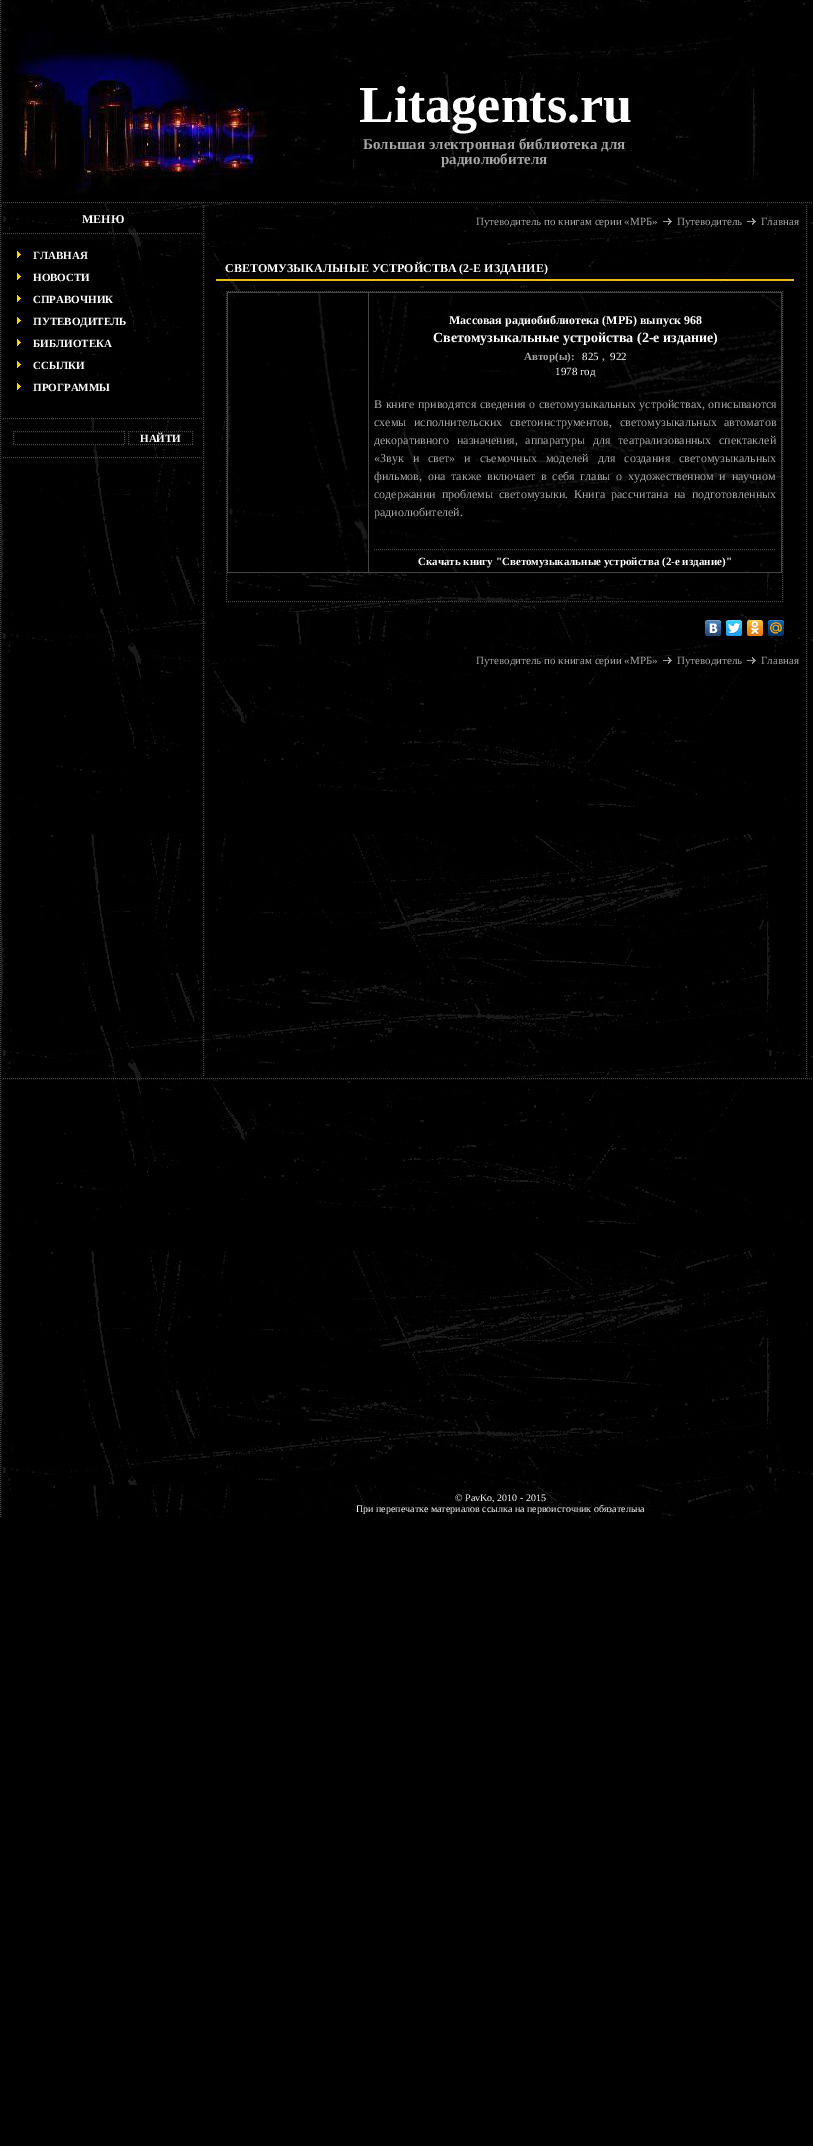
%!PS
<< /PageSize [813 2146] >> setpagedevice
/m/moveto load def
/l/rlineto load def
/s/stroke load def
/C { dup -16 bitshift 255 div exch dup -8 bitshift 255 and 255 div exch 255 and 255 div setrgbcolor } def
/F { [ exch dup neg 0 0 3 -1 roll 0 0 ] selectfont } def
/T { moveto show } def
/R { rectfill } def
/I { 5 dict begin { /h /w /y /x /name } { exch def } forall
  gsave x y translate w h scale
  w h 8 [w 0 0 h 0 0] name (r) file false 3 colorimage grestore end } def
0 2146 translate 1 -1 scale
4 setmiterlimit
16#000000 C
0 0 813 2146 R
(1.rgb) 0 0 813 1518 I
16#454545 C
[1 1] 0 setdash
.5 0 m 0 1518 l s
(2.rgb) 3 2 808 201 I
3 202.5 m 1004 0 l s
(3.rgb) 353 72 283 97 I
(4.rgb) 359 74 273 61 I
/LiberationSerif-Bold 52 F
16#FFFFFF C
(Litagents.ru) 359 122 T
/LiberationSerif-Bold 15 F
16#A5A5A5 C
(Большая электронная библиотека для) 363 149 T
(радиолюбителя) 441 164 T
16#454545 C
203.5 205 m 0 871 l s
3 233.5 m 200 0 l s
/LiberationSerif-Bold 12 F
16#FFFFFF C
(МЕНЮ) 82 223 T
(5.rgb) 17 251 4 7 I
/LiberationSerif-Bold 11 F
(ГЛАВНАЯ) 33 259 T
(5.rgb) 17 273 4 7 I
(НОВОСТИ) 33 281 T
(5.rgb) 17 295 4 7 I
(СПРАВОЧНИК) 33 303 T
(5.rgb) 17 317 4 7 I
(ПУТЕВОДИТЕЛЬ) 33 325 T
(5.rgb) 17 339 4 7 I
(БИБЛИОТЕКА) 33 347 T
(5.rgb) 17 361 4 7 I
(ССЫЛКИ) 33 369 T
(6.rgb) 17 383 4 7 I
(ПРОГРАММЫ) 33 391 T
16#454545 C
3 418.5 m 200 0 l s
16#000000 C
49 431 54 14 R
16#454545 C
13 431.5 m 112 0 l s
124.5 431 m 0 14 l s
13 444.5 m 112 0 l s
13.5 431 m 0 14 l s
16#000000 C
142 431 49 14 R
16#454545 C
128 431.5 m 65 0 l s
192.5 431 m 0 14 l s
128 444.5 m 65 0 l s
128.5 431 m 0 14 l s
16#FFFFFF C
(НАЙТИ) 140 442 T
16#454545 C
3 457.5 m 200 0 l s
/LiberationSerif-Regular 11 F
16#A5A5A5 C
(Путеводитель по книгам серии «МРБ») 476 225 T
(7.rgb) 663 218 9 7 I
(Путеводитель) 677 225 T
(7.rgb) 747 218 9 7 I
(Главная) 761 225 T
16#EABD1D C
216 279 578 2 R
/LiberationSerif-Bold 12 F
16#FFFFFF C
(СВЕТОМУЗЫКАЛЬНЫЕ УСТРОЙСТВА \(2-Е ИЗДАНИЕ\)) 225 272 T
16#454545 C
226 291.5 m 557 0 l s
782.5 291 m 0 311 l s
226 601.5 m 557 0 l s
226.5 291 m 0 311 l s
(8.rgb) 228 293 553 279 I
368 292 414 1 R
781 292 1 281 R
368 572 414 1 R
368 292 1 281 R
227 292 142 1 R
227 572 142 1 R
227 292 1 281 R
16#FFFFFF C
(Массовая радиобиблиотека \(МРБ\) выпуск 968) 449 324 T
/LiberationSerif-Bold 14 F
(Светомузыкальные устройства \(2-е издание\)) 433 342 T
/LiberationSerif-Bold 11 F
16#A5A5A5 C
(Автор\(ы\):) 524 360 T
/LiberationSerif-Regular 11 F
16#FFFFFF C
(825) 582 360 T
/LiberationSerif-Bold 11 F
16#A5A5A5 C
(,) 602 360 T
/LiberationSerif-Regular 11 F
16#FFFFFF C
(922) 610 360 T
(1978 год) 555 375 T
/LiberationSerif-Regular 12 F
16#A5A5A5 C
374 408 m .5 0 32 (В книге приводятся сведения о светомузыкальных устройствах, описываются) widthshow
374 426 m 4.5 0 32 (схемы исполнительских светоинструментов, светомузыкальных автоматов) widthshow
374 444 m 4.5 0 32 (декоративного назначения, аппаратуры для театрализованных спектаклей) widthshow
374 462 m 6 0 32 («Звук и свет» и съемочных моделей для создания светомузыкальных) widthshow
374 480 m 2.75 0 32 (фильмов, она также включает в себя главы о художественном и научном) widthshow
374 498 m 3 0 32 (содержании проблемы светомузыки.) widthshow
574 498 m 3 0 32 (Книга рассчитана на подготовленных) widthshow
(радиолюбителей.) 374 516 T
16#454545 C
374 549.5 m 402 0 l s
/LiberationSerif-Bold 11 F
16#FFFFFF C
(Скачать книгу "Светомузыкальные устройства \(2-е издание\)") 418 565 T
(9.rgb) 206 612 586 32 I
(10.rgb) 705 620 16 16 I
(11.rgb) 726 620 16 16 I
(12.rgb) 747 620 16 16 I
(13.rgb) 768 620 16 16 I
/LiberationSerif-Regular 11 F
16#A5A5A5 C
(Путеводитель по книгам серии «МРБ») 476 664 T
(7.rgb) 663 657 9 7 I
(Путеводитель) 677 664 T
(7.rgb) 747 657 9 7 I
(Главная) 761 664 T
16#454545 C
806.5 205 m 0 871 l s
3 1078.5 m 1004 0 l s
(14.rgb) 8 1485 769 31 I
/LiberationSerif-Regular 10 F
16#FFFFFF C
(© PavKo, 2010 - 2015) 455 1501 T
(При перепечатке материалов ссылка на первоисточник обязательна) 356 1512 T
showpage
